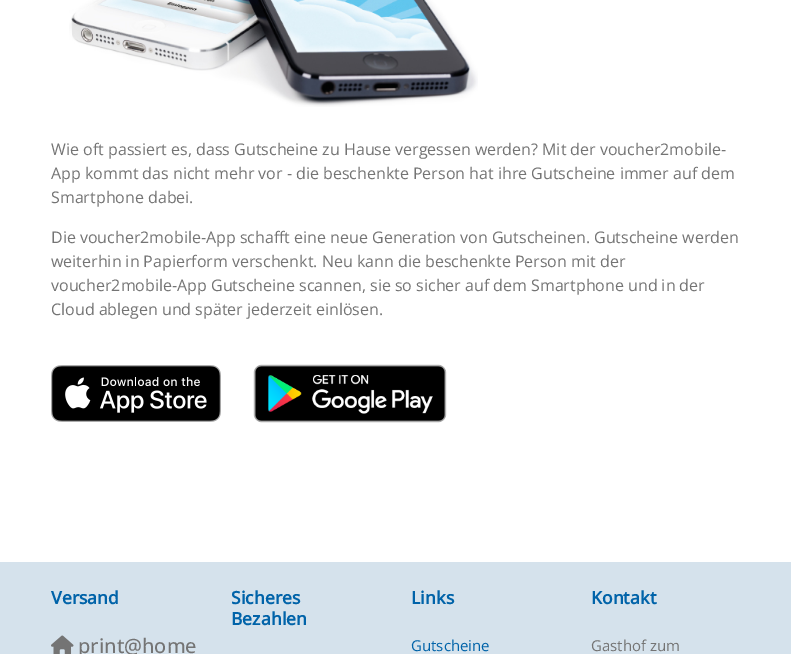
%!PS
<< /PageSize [791 654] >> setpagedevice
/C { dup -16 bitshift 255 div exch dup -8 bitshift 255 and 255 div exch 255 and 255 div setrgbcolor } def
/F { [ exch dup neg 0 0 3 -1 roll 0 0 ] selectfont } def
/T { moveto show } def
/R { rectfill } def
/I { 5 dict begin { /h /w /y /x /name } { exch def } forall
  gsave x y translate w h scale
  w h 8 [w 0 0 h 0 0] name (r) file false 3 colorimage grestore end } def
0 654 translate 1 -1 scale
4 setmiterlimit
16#FFFFFF C
0 0 791 654 R
(1.rgb) 69 0 409 107 I
/OpenSans-Regular 16 F
16#747474 C
(Wie oft passiert es, dass Gutscheine zu Hause vergessen werden? Mit der voucher2mobile-) 51 155 T
(App kommt das nicht mehr vor - die beschenkte Person hat ihre Gutscheine immer auf dem) 51 179 T
(Smartphone dabei.) 51 203 T
(Die voucher2mobile-App schafft eine neue Generation von Gutscheinen. Gutscheine werden) 51 243 T
(weiterhin in Papierform verschenkt. Neu kann die beschenkte Person mit der) 51 267 T
(voucher2mobile-App Gutscheine scannen, sie so sicher auf dem Smartphone und in der) 51 291 T
(Cloud ablegen und später jederzeit einlösen.) 51 315 T
(2.rgb) 51 365 170 57 I
(3.rgb) 253 364 194 59 I
16#D5E2EC C
0 562 791 92 R
/OpenSans-Bold 17.5 F
16#0063A9 C
(Versand) 51 604 T
(4.rgb) 51 635 23 19 I
/OpenSans-Medium 20 F
16#747474 C
(print@home) 78 653 T
/OpenSans-Bold 17.5 F
16#0063A9 C
(Sicheres) 231 604 T
(Bezahlen) 231 625 T
(Links) 411 604 T
/OpenSans-Regular 15 F
(Gutscheine) 411 651 T
/OpenSans-Bold 17.5 F
(Kontakt) 591 604 T
/OpenSans-Regular 15 F
16#747474 C
(Gasthof zum) 591 651 T
showpage
